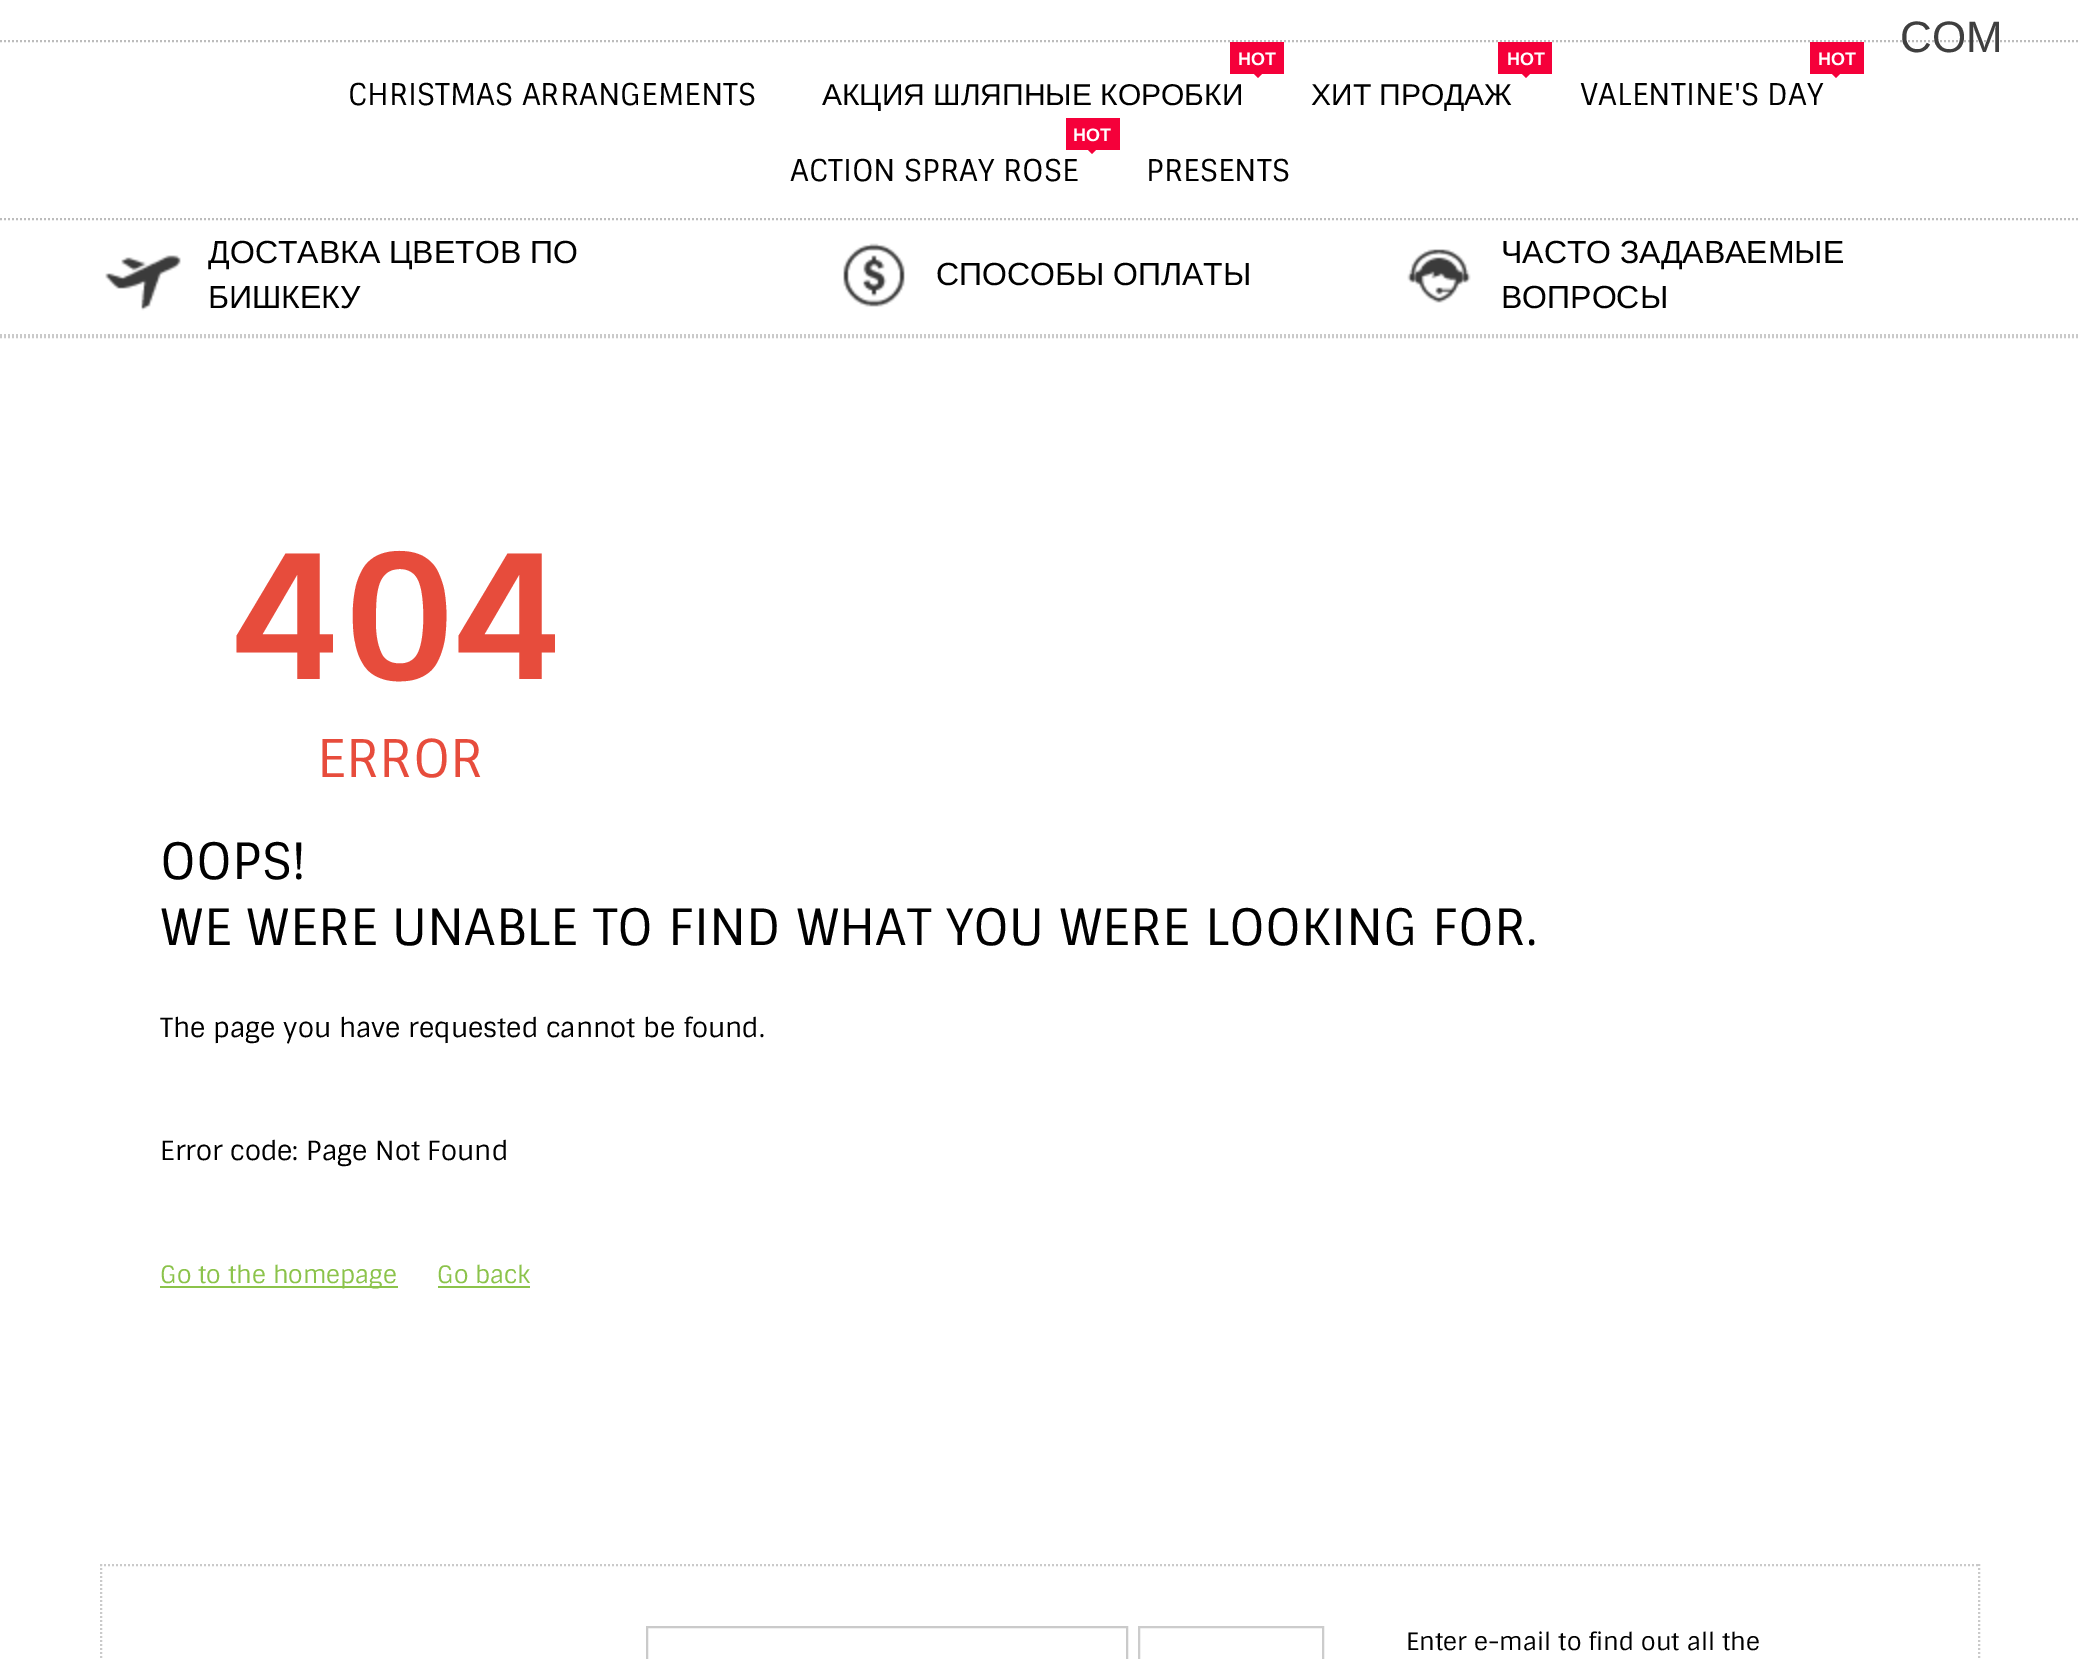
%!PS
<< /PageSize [2079 1659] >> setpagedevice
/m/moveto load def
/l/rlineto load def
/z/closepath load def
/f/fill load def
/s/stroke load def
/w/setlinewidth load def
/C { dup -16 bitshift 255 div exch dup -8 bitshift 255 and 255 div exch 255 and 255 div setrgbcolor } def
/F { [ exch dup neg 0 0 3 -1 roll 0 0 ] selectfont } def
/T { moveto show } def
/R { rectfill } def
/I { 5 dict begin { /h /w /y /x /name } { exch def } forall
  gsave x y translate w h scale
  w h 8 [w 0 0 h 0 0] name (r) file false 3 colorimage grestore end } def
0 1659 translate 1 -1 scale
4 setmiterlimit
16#FFFFFF C
0 0 2079 1659 R
16#BCBCBC C
2 w
[2 2] 0 setdash
0 41 m 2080 0 l s
/LiberationSans-Regular 44 F
16#3F3F3F C
(СОМ) 1900 52 T
16#BCBCBC C
0 219 m 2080 0 l s
/Sintony-Regular 30 F
16#000000 C
(CHRISTMAS ARRANGEMENTS) 348 105 T
16#F5003A C
1230 42 54 32 R
/LiberationSans-Bold 18 F
16#FFFFFF C
(HOT) 1238 65 T
16#F5003A C
1254 74 m 8 0 l -4 4 l z f
/LiberationSans-Regular 30 F
16#000000 C
(АКЦИЯ ШЛЯПНЫЕ КОРОБКИ) 822 105 T
16#F5003A C
1498 42 54 32 R
/LiberationSans-Bold 18 F
16#FFFFFF C
(HOT) 1507 65 T
16#F5003A C
1522 74 m 8 0 l -4 4 l z f
/LiberationSans-Regular 30 F
16#000000 C
(ХИТ ПРОДАЖ) 1311 105 T
16#F5003A C
1810 42 54 32 R
/LiberationSans-Bold 18 F
16#FFFFFF C
(HOT) 1818 65 T
16#F5003A C
1832 74 m 8 0 l -4 4 l z f
/Sintony-Regular 30 F
16#000000 C
(VALENTINE'S DAY) 1580 105 T
16#F5003A C
1066 118 54 32 R
/LiberationSans-Bold 18 F
16#FFFFFF C
(HOT) 1073 141 T
16#F5003A C
1088 150 m 8 0 l -4 4 l z f
/Sintony-Regular 30 F
16#000000 C
(ACTION SPRAY ROSE) 790 181 T
(PRESENTS) 1146 181 T
(1.rgb) 105 255 76 56 I
/LiberationSans-Regular 32 F
(ДОСТАВКА ЦВЕТОВ ПО) 208 263 T
(БИШКЕКУ) 208 308 T
(2.rgb) 843 243 62 64 I
(СПОСОБЫ ОПЛАТЫ) 936 285 T
(3.rgb) 1407 249 64 54 I
(ЧАСТО ЗАДАВАЕМЫЕ) 1501 263 T
(ВОПРОСЫ) 1501 308 T
16#CACACA C
0 335 m 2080 0 l s
0 337 m 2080 0 l s
/Sintony-Bold 172 F
16#E74C3C C
(404) 233 679 T
/Sintony-Regular 52 F
(ERROR) 317 777 T
/Sintony-Regular 50 F
16#000000 C
(OOPS!) 160 879 T
(WE WERE UNABLE TO FIND WHAT YOU WERE LOOKING FOR.) 160 945 T
/Sintony-Regular 26.4 F
(The page you have requested cannot be found.) 160 1037 T
(Error code: Page Not Found) 160 1160 T
16#8BC34A C
160 1286 238 2 R
/Sintony-Regular 24 F
(Go to the homepage) 160 1283 T
(Go back) 437 1283 T
438 1286 92 2 R
16#CACACA C
100 1565 m 1880 0 l s
1979 1564 m 0 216 l s
101 1564 m 0 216 l s
[] 0 setdash
647 1627 480 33 rectstroke
16#CCCCCC C
1139 1627 184 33 rectstroke
16#000000 C
(Enter e-mail to find out all the) 1406 1650 T
showpage
